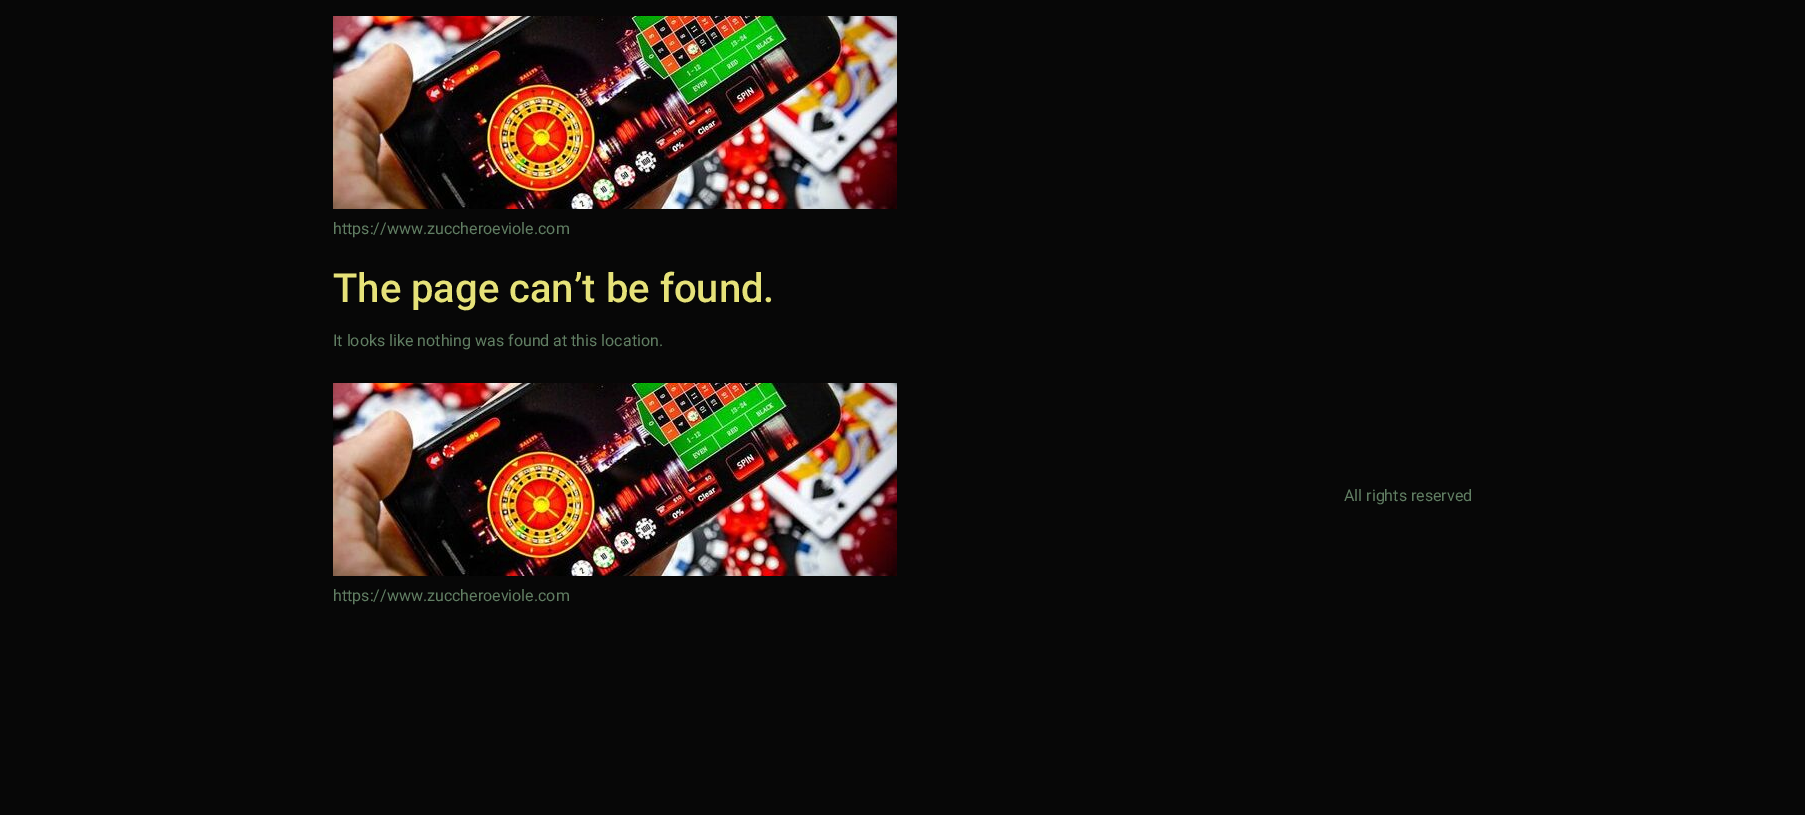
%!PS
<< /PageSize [1805 815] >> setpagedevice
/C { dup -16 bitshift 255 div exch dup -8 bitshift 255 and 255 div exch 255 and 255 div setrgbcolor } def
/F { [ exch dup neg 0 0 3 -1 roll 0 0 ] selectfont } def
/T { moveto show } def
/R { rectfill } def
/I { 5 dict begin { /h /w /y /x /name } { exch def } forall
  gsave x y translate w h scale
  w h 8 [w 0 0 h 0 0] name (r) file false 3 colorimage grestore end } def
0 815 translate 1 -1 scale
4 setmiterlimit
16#070707 C
0 0 1805 815 R
(1.rgb) 333 16 564 193 I
/Roboto-Regular 16 F
16#617E63 C
(https://www.zuccheroeviole.com) 333 234 T
/Roboto-Medium 40 F
16#E6E279 C
(The page can’t be found.) 333 302 T
/Roboto-Regular 16 F
16#617E63 C
(It looks like nothing was found at this location.) 333 346 T
(All rights reserved) 1344 501 T
(1.rgb) 333 383 564 193 I
(https://www.zuccheroeviole.com) 333 601 T
showpage
